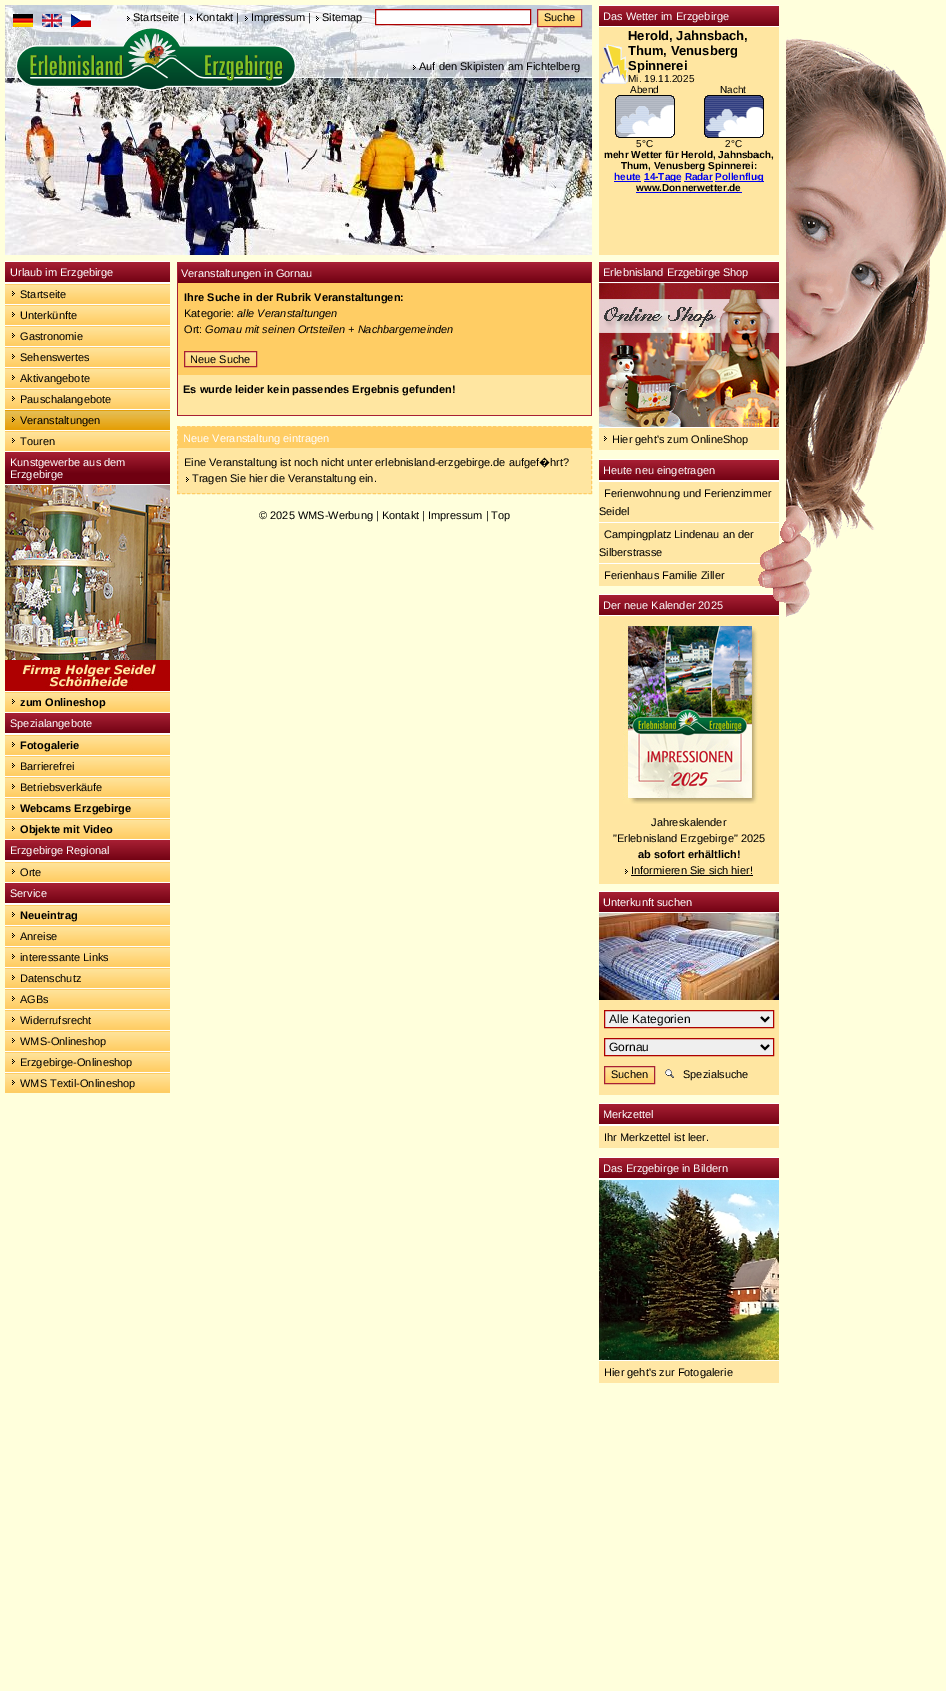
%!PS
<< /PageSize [946 1691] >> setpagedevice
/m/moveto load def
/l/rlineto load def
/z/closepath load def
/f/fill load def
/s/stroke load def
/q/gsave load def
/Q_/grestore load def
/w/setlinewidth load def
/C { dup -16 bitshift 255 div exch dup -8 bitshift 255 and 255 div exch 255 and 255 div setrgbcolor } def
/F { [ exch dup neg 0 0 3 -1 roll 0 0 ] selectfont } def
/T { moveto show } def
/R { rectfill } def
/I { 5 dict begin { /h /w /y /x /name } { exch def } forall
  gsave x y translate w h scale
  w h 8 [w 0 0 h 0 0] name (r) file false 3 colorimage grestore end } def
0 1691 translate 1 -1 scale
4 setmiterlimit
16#FFFFDC C
0 0 946 1691 R
(1.rgb) 5 5 587 250 I
16#FFE6A1 C
599 27 180 228 R
(2.rgb) 599 6 180 20 I
16#FFFFFF C
599 5 180 1 R
599 26 180 1 R
/LiberationSans-Regular 11 F
(Das Wetter im Erzgebirge) 603 20 T
(3.rgb) 600 44 28 40 I
/LiberationSans-Bold 13 F
16#000000 C
(Herold, Jahnsbach,) 628 40 T
(Thum, Venusberg) 628 55 T
(Spinnerei) 628 70 T
/LiberationSans-Regular 10 F
(Mi. 19.11.2025) 628 82 T
(Abend) 630 93 T
(Nacht) 720 93 T
(4.rgb) 615 95 60 43 I
(5.rgb) 704 95 60 43 I
(5°C) 636 147 T
(2°C) 725 147 T
/LiberationSans-Bold 10 F
(mehr Wetter für Herold, Jahnsbach,) 604 158 T
(Thum, Venusberg Spinnerei:) 621 169 T
16#0000EE C
(heute) 614 180 T
614 181 27 1 R
644 181 37 1 R
(14-Tage Radar) 644 180 T
684 181 29 1 R
715 181 49 1 R
(Pollenflug) 715 180 T
16#000000 C
(www.Donnerwetter.de) 636 191 T
16#0000EE C
636 192 106 1 R
(6.rgb) 13 14 20 13 I
(7.rgb) 42 14 20 13 I
(8.rgb) 71 14 20 13 I
(9.rgb) 127 16 3 5 I
/LiberationSans-Regular 11 F
16#000000 C
(Startseite |) 133 21 T
(10.rgb) 190 16 3 5 I
(Kontakt |) 196 21 T
(11.rgb) 245 16 3 5 I
(Impressum |) 251 21 T
(12.rgb) 316 16 3 5 I
(Sitemap) 322 21 T
16#FFFFFF C
375.5 9.5 m 155 0 l 0 15 l -155 0 l z q f Q_
16#AD0000 C
s
(13.rgb) 538 10 43 16 I
16#A82034 C
537.5 9.5 44 17 rectstroke
16#000000 C
(Suche) 544 21 T
(14.rgb) 15 27 281 64 I
(15.rgb) 413 65 3 5 I
(Auf den Skipisten am Fichtelberg) 419 70 T
(2.rgb) 599 262 180 20 I
16#FFFFFF C
599 261 180 1 R
599 282 180 1 R
(27.rgb) 599 283 180 144 I
16#FFE7A5 C
599 428 180 22 R
16#FFFFFF C
599 427 180 1 R
(2.rgb) 599 460 180 20 I
599 459 180 1 R
599 480 180 2 R
16#FFE7A5 C
599 482 180 40 R
16#000000 C
(Ferienwohnung und Ferienzimmer) 604 497 T
16#FFE7A5 C
599 523 180 40 R
16#FFFFFF C
599 522 180 1 R
16#FFE7A5 C
599 564 166 22 R
16#FFFFFF C
599 563 161 1 R
16#FFE6A1 C
599 616 180 268 R
(2.rgb) 599 595 180 20 I
16#FFFFFF C
599 594 180 1 R
599 615 180 1 R
(16.rgb) 758 37 188 580 I
(17.rgb) 5 262 165 20 I
5 261 165 1 R
5 282 165 2 R
(Urlaub im Erzgebirge) 10 276 T
(18.rgb) 5 284 165 20 I
(19.rgb) 12 291 3 5 I
16#000000 C
(Startseite) 20 298 T
(18.rgb) 5 305 165 20 I
(19.rgb) 12 312 3 5 I
16#FFFFFF C
5 304 165 1 R
16#000000 C
(Unterkünfte) 20 319 T
(18.rgb) 5 326 165 20 I
(19.rgb) 12 333 3 5 I
16#FFFFFF C
5 325 165 1 R
16#000000 C
(Gastronomie) 20 340 T
(18.rgb) 5 347 165 20 I
(19.rgb) 12 354 3 5 I
16#FFFFFF C
5 346 165 1 R
16#000000 C
(Sehenswertes) 20 361 T
(18.rgb) 5 368 165 20 I
(19.rgb) 12 375 3 5 I
16#FFFFFF C
5 367 165 1 R
16#000000 C
(Aktivangebote) 20 382 T
(18.rgb) 5 389 165 20 I
(19.rgb) 12 396 3 5 I
16#FFFFFF C
5 388 165 1 R
16#000000 C
(Pauschalangebote) 20 403 T
(20.rgb) 5 410 165 20 I
(21.rgb) 12 417 3 5 I
16#FFFFFF C
5 409 165 1 R
16#000000 C
(Veranstaltungen) 20 424 T
(18.rgb) 5 431 165 20 I
(19.rgb) 12 438 3 5 I
16#FFFFFF C
5 430 165 1 R
16#000000 C
(Touren) 20 445 T
(22.rgb) 5 452 165 32 I
16#FFFFFF C
5 451 165 1 R
5 484 165 1 R
(Kunstgewerbe aus dem) 10 466 T
(Erzgebirge) 10 478 T
(23.rgb) 5 485 165 206 I
(18.rgb) 5 692 165 20 I
(19.rgb) 12 699 3 5 I
5 691 165 1 R
/LiberationSans-Bold 11 F
16#000000 C
(zum Onlineshop) 20 706 T
(17.rgb) 5 713 165 20 I
16#FFFFFF C
5 712 165 1 R
5 733 165 2 R
/LiberationSans-Regular 11 F
(Spezialangebote) 10 727 T
(18.rgb) 5 735 165 20 I
(19.rgb) 12 742 3 5 I
/LiberationSans-Bold 11 F
16#000000 C
(Fotogalerie) 20 749 T
(18.rgb) 5 756 165 20 I
(19.rgb) 12 763 3 5 I
16#FFFFFF C
5 755 165 1 R
/LiberationSans-Regular 11 F
16#000000 C
(Barrierefrei) 20 770 T
(18.rgb) 5 777 165 20 I
(19.rgb) 12 784 3 5 I
16#FFFFFF C
5 776 165 1 R
16#000000 C
(Betriebsverkäufe) 20 791 T
(18.rgb) 5 798 165 20 I
(19.rgb) 12 805 3 5 I
16#FFFFFF C
5 797 165 1 R
/LiberationSans-Bold 11 F
16#000000 C
(Webcams Erzgebirge) 20 812 T
(18.rgb) 5 819 165 20 I
(19.rgb) 12 826 3 5 I
16#FFFFFF C
5 818 165 1 R
16#000000 C
(Objekte mit Video) 20 833 T
(17.rgb) 5 840 165 20 I
16#FFFFFF C
5 839 165 1 R
5 860 165 2 R
/LiberationSans-Regular 11 F
(Erzgebirge Regional) 10 854 T
(18.rgb) 5 862 165 20 I
(19.rgb) 12 869 3 5 I
16#000000 C
(Orte) 20 876 T
(17.rgb) 5 883 165 20 I
16#FFFFFF C
5 882 165 1 R
5 903 165 2 R
(Service) 10 897 T
(18.rgb) 5 905 165 20 I
(19.rgb) 12 912 3 5 I
/LiberationSans-Bold 11 F
16#000000 C
(Neueintrag) 20 919 T
(18.rgb) 5 926 165 20 I
(19.rgb) 12 933 3 5 I
16#FFFFFF C
5 925 165 1 R
/LiberationSans-Regular 11 F
16#000000 C
(Anreise) 20 940 T
(18.rgb) 5 947 165 20 I
(19.rgb) 12 954 3 5 I
16#FFFFFF C
5 946 165 1 R
16#000000 C
(interessante Links) 20 961 T
(18.rgb) 5 968 165 20 I
(19.rgb) 12 975 3 5 I
16#FFFFFF C
5 967 165 1 R
16#000000 C
(Datenschutz) 20 982 T
(18.rgb) 5 989 165 20 I
(19.rgb) 12 996 3 5 I
16#FFFFFF C
5 988 165 1 R
16#000000 C
(AGBs) 20 1003 T
(18.rgb) 5 1010 165 20 I
(19.rgb) 12 1017 3 5 I
16#FFFFFF C
5 1009 165 1 R
16#000000 C
(Widerrufsrecht) 20 1024 T
(18.rgb) 5 1031 165 20 I
(19.rgb) 12 1038 3 5 I
16#FFFFFF C
5 1030 165 1 R
16#000000 C
(WMS-Onlineshop) 20 1045 T
(18.rgb) 5 1052 165 20 I
(19.rgb) 12 1059 3 5 I
16#FFFFFF C
5 1051 165 1 R
16#000000 C
(Erzgebirge-Onlineshop) 20 1066 T
(18.rgb) 5 1073 165 20 I
(19.rgb) 12 1080 3 5 I
16#FFFFFF C
5 1072 165 1 R
16#000000 C
(WMS Textil-Onlineshop) 20 1087 T
16#FFE6A1 C
178 375 413 40 R
16#A82034 C
591 262 1 154 R
177 415 415 1 R
177 262 1 154 R
178 262 413 2 R
(24.rgb) 178 264 413 19 I
16#FFFFFF C
(Veranstaltungen in Gornau) 181 277 T
16#FFCD64 C
178 283 413 92 R
/LiberationSans-Bold 11 F
16#000000 C
(Ihre Suche in der Rubrik Veranstaltungen:) 184 301 T
/LiberationSans-Regular 11 F
(Kategorie:) 184 317 T
/LiberationSans-Italic 11 F
(alle Veranstaltungen) 237 317 T
/LiberationSans-Regular 11 F
(Ort:) 184 333 T
/LiberationSans-Italic 11 F
(Gornau mit seinen Ortsteilen + Nachbargemeinden) 205 333 T
(25.rgb) 185 352 71 14 I
16#A82034 C
184.5 351.5 72 15 rectstroke
/LiberationSans-Regular 11 F
16#000000 C
(Neue Suche) 190 363 T
/LiberationSans-Bold 11 F
(Es wurde leider kein passendes Ergebnis gefunden!) 183 393 T
16#FFE6A1 C
177 426 415 68 R
16#FFCD64 C
[3 2.02] 0 setdash
177 426.5 m 415 0 l s
[3 2] 0 setdash
591.5 426 m 0 68 l s
[3 2.02] 0 setdash
177 493.5 m 415 0 l s
[3 2] 0 setdash
177.5 426 m 0 68 l s
178 427 413 21 R
/LiberationSans-Regular 11 F
16#FFFFFF C
(Neue Veranstaltung eintragen) 183 442 T
16#000000 C
(Eine Veranstaltung ist noch nicht unter erlebnisland-erzgebirge.de aufgef) 184 466 T
/NotoSans-Regular 11 F
(�) 539 466 T
/LiberationSans-Regular 11 F
(hrt?) 550 466 T
(26.rgb) 186 477 3 5 I
(Tragen Sie hier die Veranstaltung ein.) 192 482 T
(© 2025 WMS-Werbung | Kontakt | Impressum | Top) 259 519 T
16#FFFFFF C
(Erlebnisland Erzgebirge Shop) 603 276 T
(28.rgb) 604 436 3 5 I
16#000000 C
(Hier geht's zum OnlineShop) 612 443 T
16#FFFFFF C
(Heute neu eingetragen) 603 474 T
16#000000 C
(Seidel) 599 515 T
(Campingplatz Lindenau an der) 604 538 T
(Silberstrasse) 599 556 T
(Ferienhaus Familie Ziller) 604 579 T
16#FFFFFF C
(Der neue Kalender 2025) 603 609 T
(29.rgb) 623 624 135 180 I
16#000000 C
(Jahreskalender) 651 826 T
("Erlebnisland Erzgebirge" 2025) 613 842 T
/LiberationSans-Bold 11 F
(ab sofort erhältlich!) 638 858 T
(26.rgb) 625 869 3 5 I
/LiberationSans-Regular 11 F
(Informieren Sie sich hier!) 631 874 T
631 875 122 1 R
16#FFE6A1 C
599 1000 180 95 R
(2.rgb) 599 892 180 20 I
16#FFFFFF C
599 891 180 1 R
599 912 180 1 R
(Unterkunft suchen) 603 906 T
(30.rgb) 599 913 180 87 I
16#EFEFEF C
604.5 1010.5 m 169 0 l 0 17 l -169 0 l z q f Q_
16#AD0000 C
[] 0 setdash
s
16#000000 C
2 w
761 1017 m 4 4 l 4 -4 l s
/LiberationSans-Regular 12 F
(Alle Kategorien) 609 1023 T
16#EFEFEF C
604.5 1038.5 m 169 0 l 0 17 l -169 0 l z q f Q_
16#AD0000 C
1 w
s
16#000000 C
2 w
761 1045 m 4 4 l 4 -4 l s
(Gornau) 609 1051 T
(31.rgb) 605 1067 49 16 I
16#A82034 C
1 w
604.5 1066.5 50 17 rectstroke
/LiberationSans-Regular 11 F
16#000000 C
(Suchen) 611 1078 T
(32.rgb) 665 1069 9 9 I
(Spezialsuche) 683 1078 T
(2.rgb) 599 1104 180 20 I
16#FFFFFF C
599 1103 180 1 R
599 1124 180 2 R
(Merkzettel) 603 1118 T
16#FFE7A5 C
599 1126 180 22 R
16#000000 C
(Ihr Merkzettel ist leer.) 604 1141 T
(2.rgb) 599 1158 180 20 I
16#FFFFFF C
599 1157 180 1 R
599 1178 180 2 R
(Das Erzgebirge in Bildern) 603 1172 T
(33.rgb) 599 1180 180 180 I
16#FFE7A5 C
599 1361 180 22 R
16#FFFFFF C
599 1360 180 1 R
16#000000 C
(Hier geht's zur Fotogalerie) 604 1376 T
showpage
